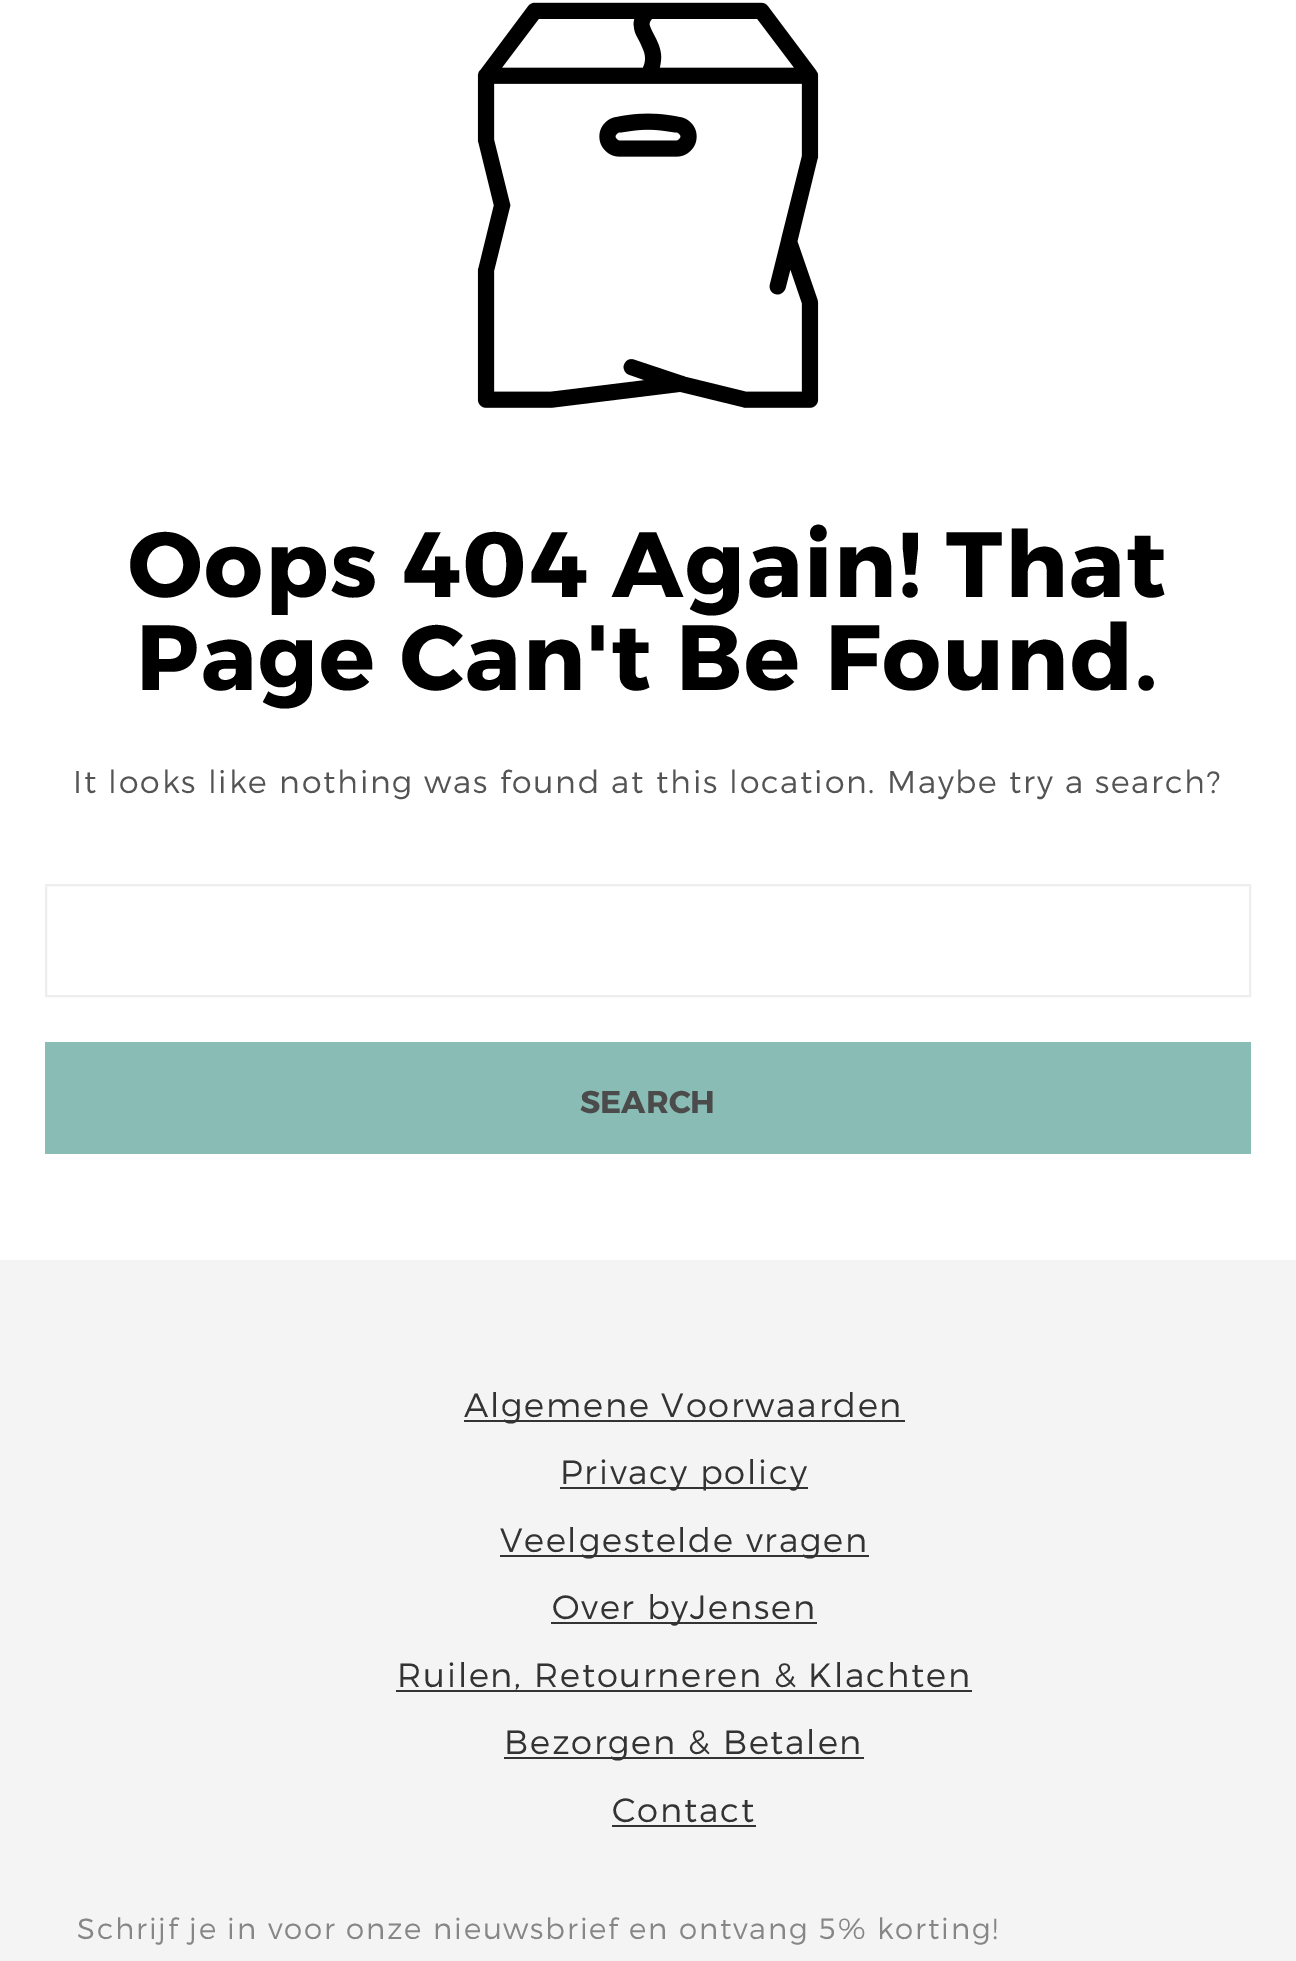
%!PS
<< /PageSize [1296 1961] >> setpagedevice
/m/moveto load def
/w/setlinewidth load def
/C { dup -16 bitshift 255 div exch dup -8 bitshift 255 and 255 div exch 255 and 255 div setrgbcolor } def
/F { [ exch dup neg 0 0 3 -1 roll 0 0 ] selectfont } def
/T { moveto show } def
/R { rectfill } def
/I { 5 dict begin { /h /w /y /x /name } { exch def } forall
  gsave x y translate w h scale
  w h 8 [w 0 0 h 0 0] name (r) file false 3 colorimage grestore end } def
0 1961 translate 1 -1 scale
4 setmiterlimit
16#FFFFFF C
0 0 1296 1961 R
(1.rgb) 477 2 342 406 I
/Montserrat-Bold 92.3 F
16#000000 C
128 597 m 1.8 0 (Oops 404 Again! That) ashow
136 690 m 1.8 0 (Page Can't Be Found.) ashow
/Montserrat-Regular 31.5 F
16#545454 C
73 793 m 1.8 0 (It looks like nothing was found at this location. Maybe try a search?) ashow
16#EEEEEE C
2 w
46 885 1204 111 rectstroke
16#8ABCB6 C
45 1042 1206 112 R
/Montserrat-Bold 31.5 F
16#4B4B4B C
(SEARCH) 580 1113 T
16#F4F4F4 C
0 1260 1296 701 R
16#333333 C
464 1420 441 2 R
/Montserrat-Regular 33.75 F
464 1417 m 1.8 0 (Algemene Voorwaarden) ashow
560 1487 248 2 R
560 1484 m 1.8 0 (Privacy policy) ashow
500 1555 369 2 R
500 1552 m 1.8 0 (Veelgestelde vragen) ashow
551 1622 266 2 R
552 1619 m 1.8 0 (Over byJensen) ashow
397 1687 m 1.8 0 (Ruilen, Retourneren & Klachten) ashow
396 1690 576 2 R
504 1757 360 2 R
504 1754 m 1.8 0 (Bezorgen & Betalen) ashow
612 1822 m 1.8 0 (Contact) ashow
612 1825 144 2 R
/Montserrat-Regular 29.25 F
16#868686 C
77 1939 m 1.8 0 (Schrijf je in voor onze nieuwsbrief en ontvang 5% korting!) ashow
showpage
